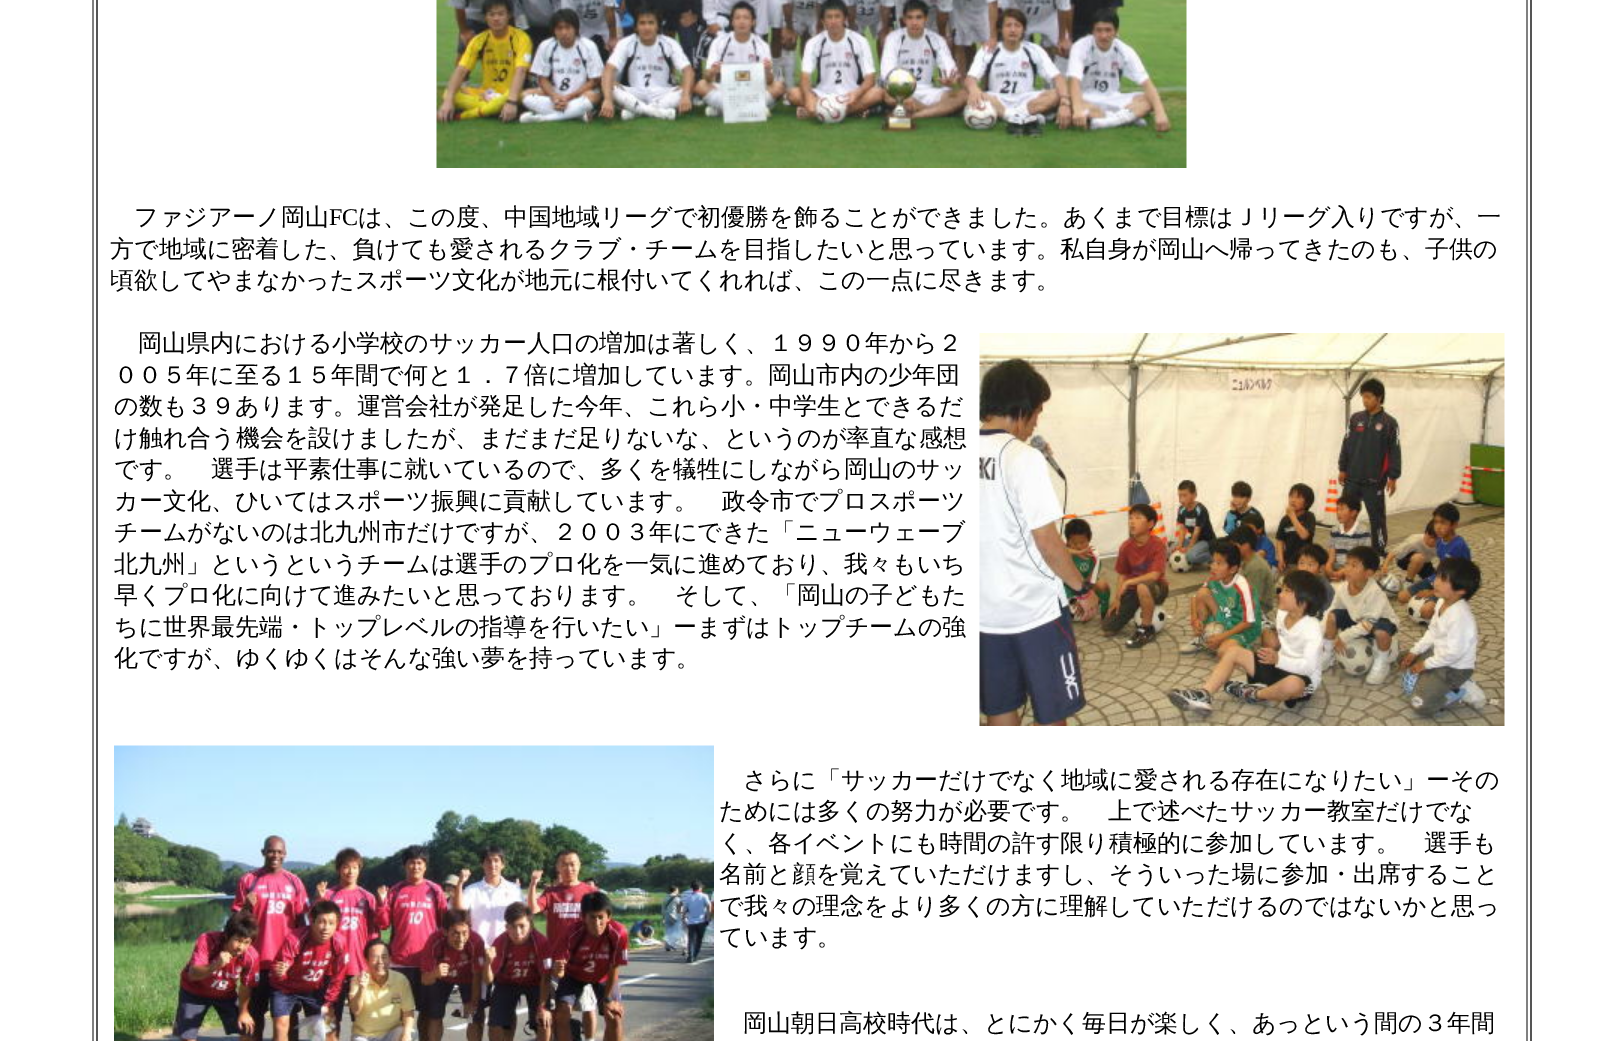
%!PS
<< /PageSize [1622 1041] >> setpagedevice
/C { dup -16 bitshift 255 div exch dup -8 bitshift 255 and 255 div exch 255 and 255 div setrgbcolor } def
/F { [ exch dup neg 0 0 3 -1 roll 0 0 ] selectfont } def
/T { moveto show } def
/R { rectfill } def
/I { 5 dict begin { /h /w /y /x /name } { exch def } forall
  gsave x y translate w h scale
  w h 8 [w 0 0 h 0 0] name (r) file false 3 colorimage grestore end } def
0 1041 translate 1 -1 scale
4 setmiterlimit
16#FFFFFF C
0 0 1622 1041 R
16#555555 C
1530 0 2 1041 R
16#808080 C
92 0 2 1041 R
1526 0 2 1041 R
16#555555 C
96 0 2 1041 R
(1.rgb) 436 0 751 168 I
/WenQuanYiZenHei-Medium 24 F
16#000000 C
(ファジアーノ岡山) 134 225 T
/LiberationSerif-Regular 24 F
(FC) 329 225 T
/WenQuanYiZenHei-Medium 24 F
(は、この度、中国地域リーグで初優勝を飾ることができました。あくまで目標はＪリーグ入りですが、一) 358 225 T
(方で地域に密着した、負けても愛されるクラブ・チームを目指したいと思っています。私自身が岡山へ帰ってきたのも、子供の) 110 257 T
(頃欲してやまなかったスポーツ文化が地元に根付いてくれれば、この一点に尽きます。) 110 288 T
(岡山県内における小学校のサッカー人口の増加は著しく、１９９０年から２) 138 351 T
(2.rgb) 979 333 526 393 I
(００５年に至る１５年間で何と１．７倍に増加しています。岡山市内の少年団) 114 383 T
(の数も３９あります。運営会社が発足した今年、これら小・中学生とできるだ) 114 414 T
(け触れ合う機会を設けましたが、まだまだ足りないな、というのが率直な感想) 114 446 T
(です。　選手は平素仕事に就いているので、多くを犠牲にしながら岡山のサッ) 114 477 T
(カー文化、ひいてはスポーツ振興に貢献しています。　政令市でプロスポーツ) 114 509 T
(チームがないのは北九州市だけですが、２００３年にできた「ニューウェーブ) 114 540 T
(北九州」というというチームは選手のプロ化を一気に進めており、我々もいち) 114 572 T
(早くプロ化に向けて進みたいと思っております。　そして、「岡山の子どもた) 114 603 T
(ちに世界最先端・トップレベルの指導を行いたい」ーまずはトップチームの強) 114 635 T
(化ですが、ゆくゆくはそんな強い夢を持っています。) 114 666 T
(3.rgb) 114 745 600 296 I
(さらに「サッカーだけでなく地域に愛される存在になりたい」ーその) 743 788 T
(ためには多くの努力が必要です。　上で述べたサッカー教室だけでな) 719 819 T
(く、各イベントにも時間の許す限り積極的に参加しています。　選手も) 719 851 T
(名前と顔を覚えていただけますし、そういった場に参加・出席すること) 719 882 T
(で我々の理念をより多くの方に理解していただけるのではないかと思っ) 719 914 T
(ています。) 719 945 T
(岡山朝日高校時代は、とにかく毎日が楽しく、あっという間の３年間) 743 1031 T
showpage
